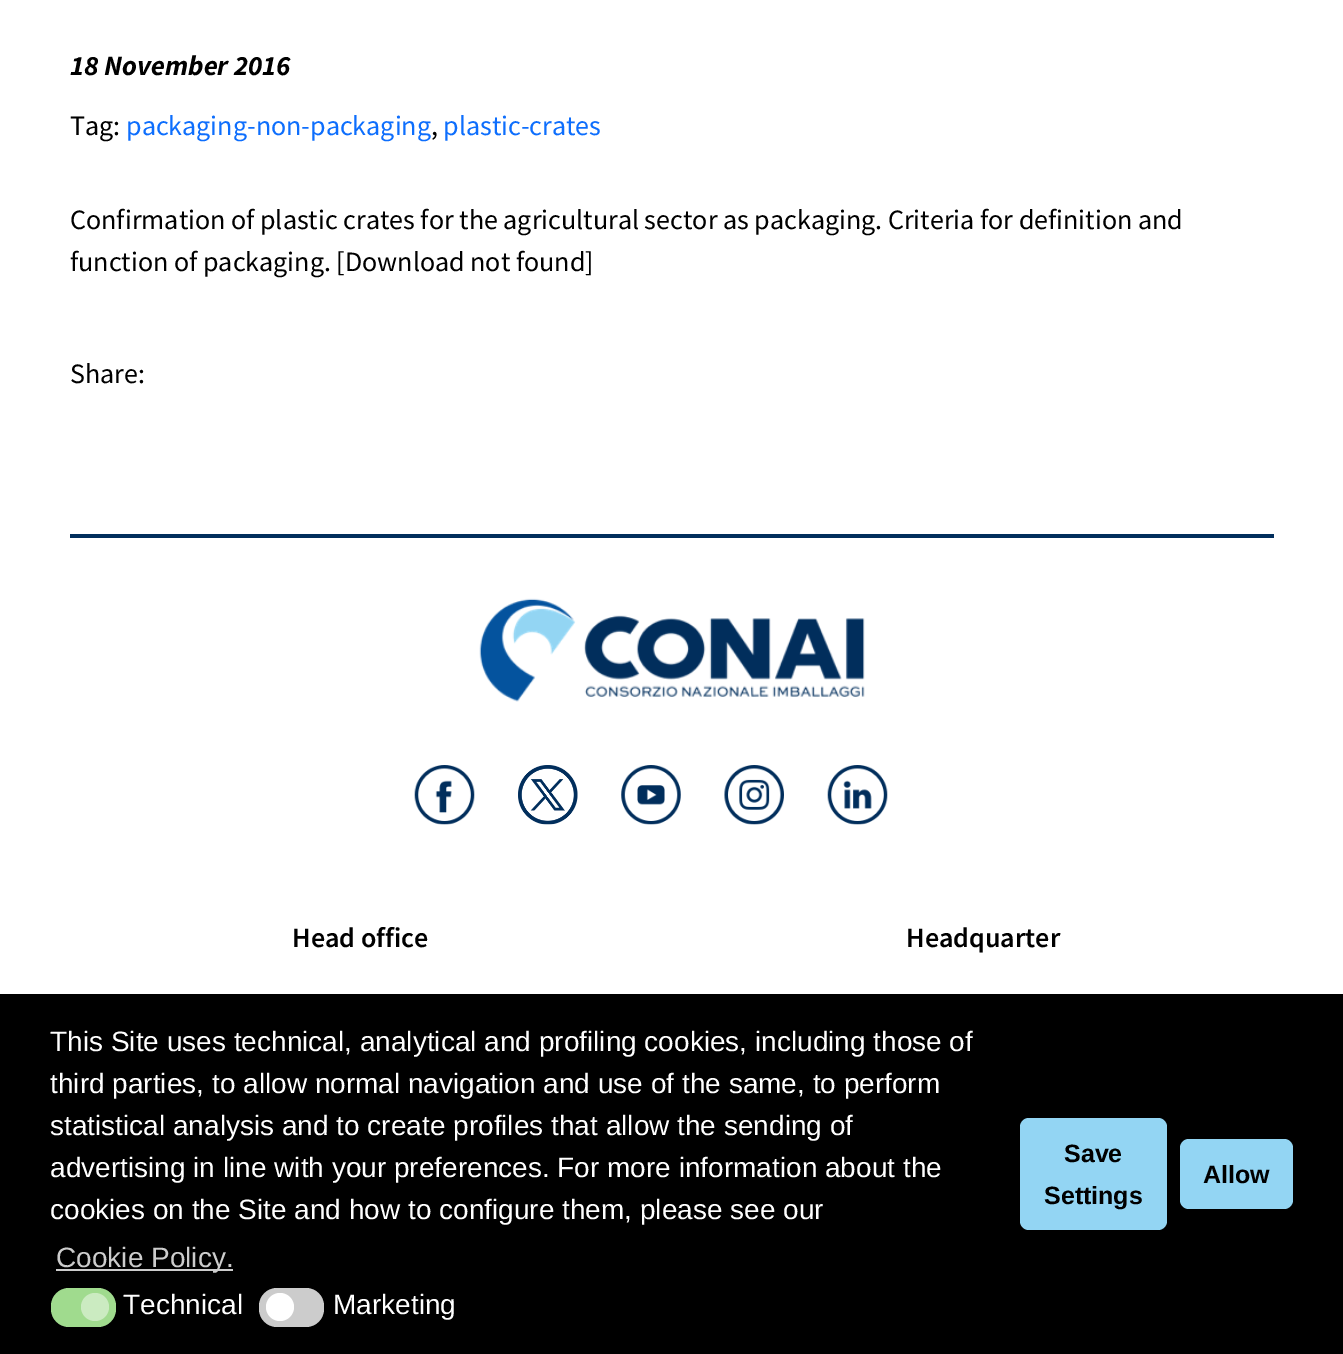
%!PS
<< /PageSize [1343 1354] >> setpagedevice
/f/fill load def
/C { dup -16 bitshift 255 div exch dup -8 bitshift 255 and 255 div exch 255 and 255 div setrgbcolor } def
/F { [ exch dup neg 0 0 3 -1 roll 0 0 ] selectfont } def
/T { moveto show } def
/R { rectfill } def
/O { newpath 0 360 arc closepath } def
/Q { 5 dict begin { /r /h /w /y /x } { exch def } forall
  x r add y moveto x w add y 2 copy h add r arct x w add y h add x 1 index r arct
  x y h add x y r arct x y 2 copy exch w add exch r arct closepath end } def
/I { 5 dict begin { /h /w /y /x /name } { exch def } forall
  gsave x y translate w h scale
  w h 8 [w 0 0 h 0 0] name (r) file false 3 colorimage grestore end } def
0 1354 translate 1 -1 scale
4 setmiterlimit
16#FFFFFF C
0 0 1343 1354 R
/SourceSansPro-BoldItalic 28 F
16#000000 C
(18 November 2016) 70 75 T
/SourceSansPro-Regular 28 F
(Tag:) 70 135 T
16#0D6EFD C
(packaging-non-packaging) 126 135 T
16#000000 C
(,) 431 135 T
16#0D6EFD C
(plastic-crates) 443 135 T
16#000000 C
(Confirmation of plastic crates for the agricultural sector as packaging. Criteria for definition and) 70 229 T
(function of packaging. [Download not found]) 70 271 T
(Share:) 70 383 T
16#012E5C C
70 534 1204 4 R
(1.rgb) 479 598 386 104 I
(2.rgb) 414 765 61 60 I
(3.rgb) 518 765 60 60 I
(4.rgb) 621 765 60 60 I
(5.rgb) 724 765 60 60 I
(6.rgb) 827 765 61 60 I
/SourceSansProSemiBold-SemiBold 28 F
16#000000 C
(Head office) 292 947 T
(Headquarter) 906 947 T
0 994 1343 360 R
/LiberationSans-Regular 28 F
16#FFFFFF C
(This Site uses technical, analytical and profiling cookies, including those of) 50 1051 T
(third parties, to allow normal navigation and use of the same, to perform) 50 1093 T
(statistical analysis and to create profiles that allow the sending of) 50 1135 T
(advertising in line with your preferences. For more information about the) 50 1177 T
(cookies on the Site and how to configure them, please see our) 50 1219 T
16#CCCCCC C
56 1269 177 2 R
(Cookie Policy.) 56 1267 T
16#A0DB8E C
51 1288 65 39 18 Q f
16#CBEBC1 C
95 1307 14 O f
16#FFFFFF C
(Technical) 123 1314 T
16#CCCCCC C
259 1288 65 39 18 Q f
16#FFFFFF C
280 1307 14 O f
(Marketing) 333 1314 T
16#93D5F3 C
1020 1118 147 112 9 Q f
/LiberationSans-Bold 25 F
16#000000 C
(Save) 1064 1162 T
(Settings) 1044 1204 T
16#93D5F3 C
1180 1139 113 70 9 Q f
16#000000 C
(Allow) 1203 1183 T
showpage
